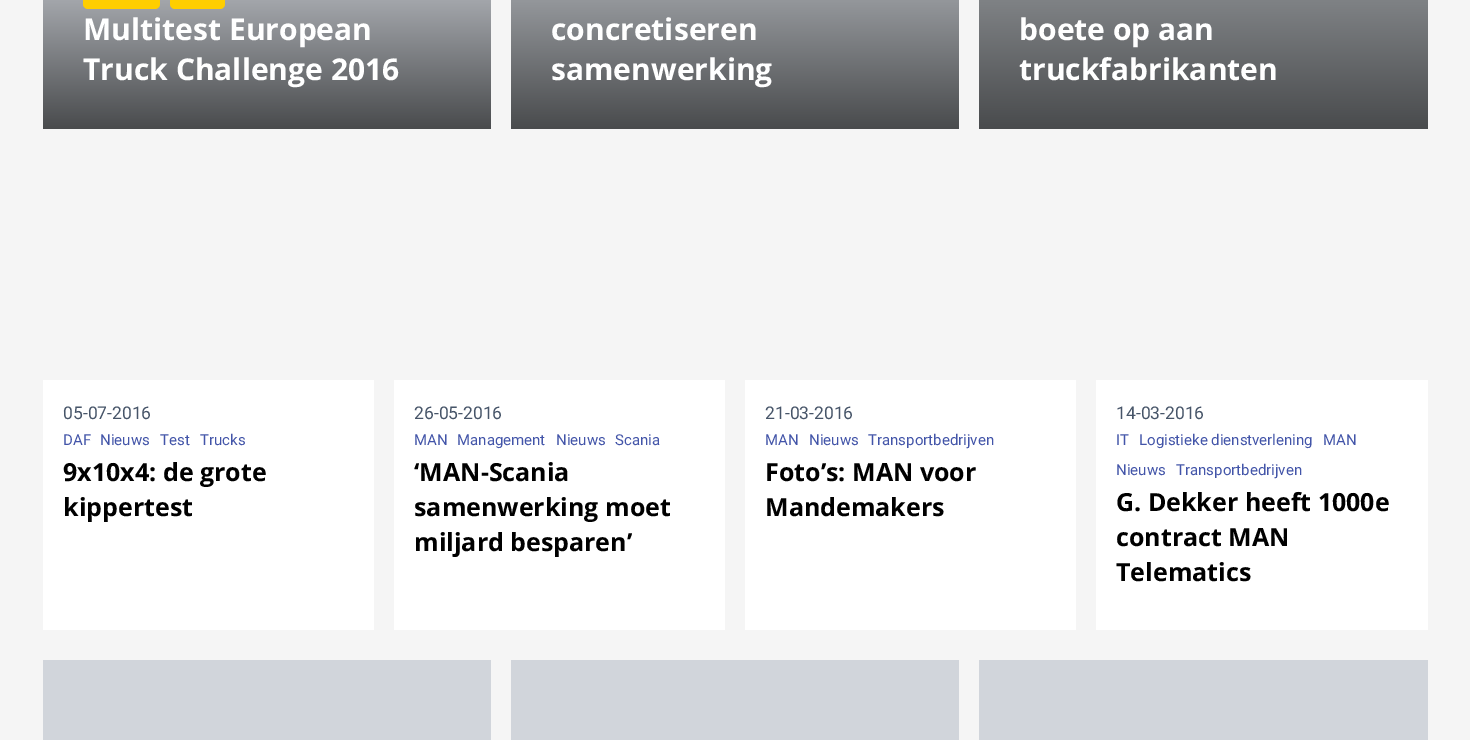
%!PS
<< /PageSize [1470 740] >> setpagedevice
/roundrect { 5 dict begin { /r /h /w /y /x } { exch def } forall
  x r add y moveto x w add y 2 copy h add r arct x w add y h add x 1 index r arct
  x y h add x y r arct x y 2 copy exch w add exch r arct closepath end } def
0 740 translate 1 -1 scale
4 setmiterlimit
0.961 setgray
0 0 1470 740 rectfill
gsave newpath 43 0 moveto 491 0 lineto 491 129 lineto 43 129 lineto closepath clip newpath
<< /ShadingType 2 /ColorSpace /DeviceRGB /Coords [267 -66 267 129] /Extend [true true] /Function << /FunctionType 2 /Domain [0 1] /C0 [0.82 0.835 0.859] /C1 [0.286 0.294 0.302] /N 1 >> >> shfill grestore
0.996 0.808 0 setrgbcolor
83 -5 77 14 5 roundrect fill
170 -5 55 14 5 roundrect fill
/OpenSans-Bold [30 0 0 -30 0 0] selectfont
1 setgray
83 40 moveto (Multitest European) show
83 80 moveto (Truck Challenge 2016) show
gsave newpath 511 0 moveto 959 0 lineto 959 129 lineto 511 129 lineto closepath clip newpath
<< /ShadingType 2 /ColorSpace /DeviceRGB /Coords [735 -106 735 129] /Extend [true true] /Function << /FunctionType 2 /Domain [0 1] /C0 [0.82 0.835 0.859] /C1 [0.286 0.294 0.302] /N 1 >> >> shfill grestore
551 40 moveto (concretiseren) show
551 80 moveto (samenwerking) show
gsave newpath 979 0 moveto 1428 0 lineto 1428 129 lineto 979 129 lineto closepath clip newpath
<< /ShadingType 2 /ColorSpace /DeviceRGB /Coords [1203 -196 1203 129] /Extend [true true] /Function << /FunctionType 2 /Domain [0 1] /C0 [0.82 0.835 0.859] /C1 [0.286 0.294 0.302] /N 1 >> >> shfill grestore
1019 40 moveto (boete op aan) show
1019 80 moveto (truckfabrikanten) show
43 380 331 250 rectfill
/Roboto-Regular [17.5 0 0 -17.5 0 0] selectfont
0.278 0.333 0.412 setrgbcolor
63 419 moveto (05-07-2016) show
/Roboto-Regular [15 0 0 -15 0 0] selectfont
0.263 0.333 0.663 setrgbcolor
63 445 moveto (DAF) show
100 445 moveto (Nieuws) show
160 445 moveto (Test) show
200 445 moveto (Trucks) show
/OpenSans-Bold [25 0 0 -25 0 0] selectfont
0 setgray
63 481 moveto (9x10x4: de grote) show
63 516 moveto (kippertest) show
1 setgray
394 380 331 250 rectfill
/Roboto-Regular [17.5 0 0 -17.5 0 0] selectfont
0.278 0.333 0.412 setrgbcolor
414 419 moveto (26-05-2016) show
/Roboto-Regular [15 0 0 -15 0 0] selectfont
0.263 0.333 0.663 setrgbcolor
414 445 moveto (MAN) show
457 445 moveto (Management) show
556 445 moveto (Nieuws) show
615 445 moveto (Scania) show
/OpenSans-Bold [25 0 0 -25 0 0] selectfont
0 setgray
414 481 moveto (‘MAN-Scania) show
414 516 moveto (samenwerking moet) show
414 551 moveto (miljard besparen’) show
1 setgray
745 380 331 250 rectfill
/Roboto-Regular [17.5 0 0 -17.5 0 0] selectfont
0.278 0.333 0.412 setrgbcolor
765 419 moveto (21-03-2016) show
/Roboto-Regular [15 0 0 -15 0 0] selectfont
0.263 0.333 0.663 setrgbcolor
765 445 moveto (MAN) show
809 445 moveto (Nieuws) show
868 445 moveto (Transportbedrijven) show
/OpenSans-Bold [25 0 0 -25 0 0] selectfont
0 setgray
765 481 moveto (Foto’s: MAN voor) show
765 516 moveto (Mandemakers) show
1 setgray
1096 380 332 250 rectfill
/Roboto-Regular [17.5 0 0 -17.5 0 0] selectfont
0.278 0.333 0.412 setrgbcolor
1116 419 moveto (14-03-2016) show
/Roboto-Regular [15 0 0 -15 0 0] selectfont
0.263 0.333 0.663 setrgbcolor
1116 445 moveto (IT) show
1139 445 moveto (Logistieke dienstverlening) show
1323 445 moveto (MAN) show
1116 475 moveto (Nieuws) show
1176 475 moveto (Transportbedrijven) show
/OpenSans-Bold [25 0 0 -25 0 0] selectfont
0 setgray
1116 511 moveto (G. Dekker heeft 1000e) show
1116 546 moveto (contract MAN) show
1116 581 moveto (Telematics) show
0.82 0.835 0.859 setrgbcolor
43 660 448 80 rectfill
511 660 448 80 rectfill
979 660 449 80 rectfill
showpage
